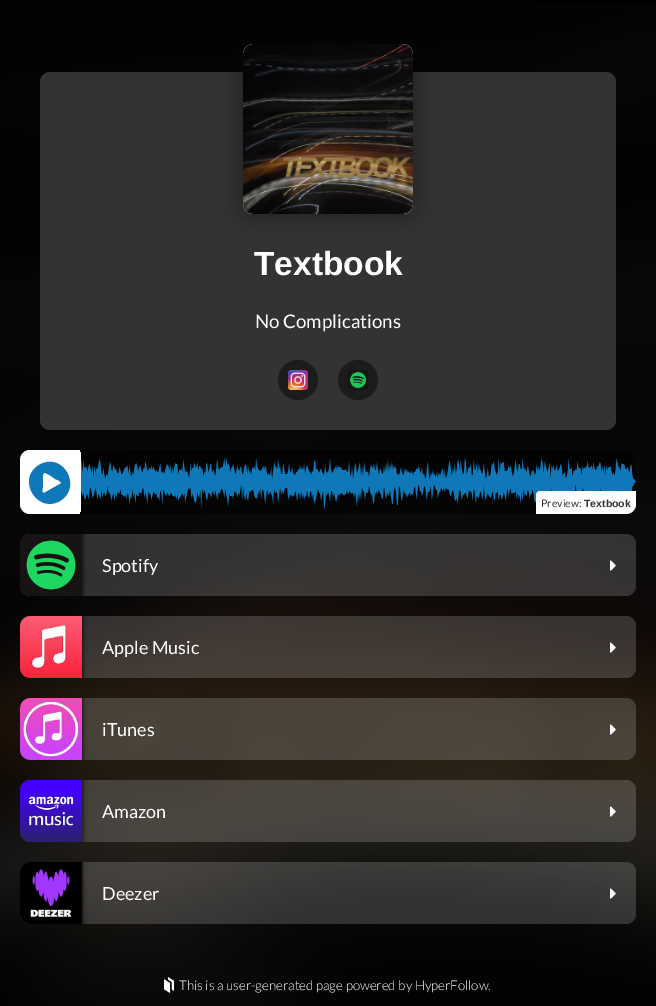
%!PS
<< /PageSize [656 1006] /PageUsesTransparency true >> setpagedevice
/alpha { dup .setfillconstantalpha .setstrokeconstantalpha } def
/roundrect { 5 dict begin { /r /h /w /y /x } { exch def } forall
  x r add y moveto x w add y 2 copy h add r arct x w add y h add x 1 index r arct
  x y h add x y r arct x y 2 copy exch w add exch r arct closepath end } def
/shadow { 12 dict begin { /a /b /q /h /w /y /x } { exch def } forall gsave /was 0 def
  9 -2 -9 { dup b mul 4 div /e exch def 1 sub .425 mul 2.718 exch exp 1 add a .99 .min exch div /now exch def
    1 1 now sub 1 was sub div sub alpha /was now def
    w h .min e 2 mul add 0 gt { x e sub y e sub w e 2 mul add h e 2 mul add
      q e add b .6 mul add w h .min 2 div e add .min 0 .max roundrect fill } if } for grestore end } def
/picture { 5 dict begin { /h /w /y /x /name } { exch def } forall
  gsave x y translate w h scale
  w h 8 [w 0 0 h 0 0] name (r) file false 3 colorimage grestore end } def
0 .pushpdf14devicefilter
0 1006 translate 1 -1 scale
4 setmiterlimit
0 setgray
0 0 656 1006 rectfill
(img1.rgb) 0 2 656 1004 picture
0.2 setgray
40 72 576 358 10 roundrect fill
0 setgray
243 44 170 170 10 12.5 0.35 shadow
0.8 setgray
243 44 170 170 10 roundrect fill
(img2.rgb) 243 44 170 170 picture
/LiberationSans-Bold [33.5 0 0 -33.5 0 0] selectfont
1 setgray
254 275 moveto (Textbook) show
/Lato-Regular [18.75 0 0 -18.75 0 0] selectfont
255 328 moveto (No Complications) show
0.11 setgray
newpath 298 380 20 0 360 arc closepath fill
(img3.rgb) 288 370 20 20 picture
newpath 358 380 20 0 360 arc closepath fill
(img4.rgb) 348 370 20 20 picture
1 setgray
newpath 30 450 moveto 80 450 lineto 80 514 lineto 30 514 lineto 24.5 514 20 509.5 20 504 curveto 20 460 lineto 20 454.5 24.5 450 30 450 curveto closepath fill
0.059 0.471 0.722 setrgbcolor
newpath 39 465 moveto 63 451 83 487 60 501 curveto 37 514 16 479 39 465 curveto closepath 60 484 moveto 64 482 55 479 55 479 curveto 53 477 45 472 44 473 curveto 42 474 43 484 43 486 curveto 43 487 41 493 44 493 curveto closepath fill
0.5 alpha
0 setgray
newpath 80 450 moveto 626 450 lineto 631.5 450 636 454.5 636 460 curveto 636 504 lineto 636 509.5 631.5 514 626 514 curveto 80 514 lineto closepath fill
1 alpha
1 setgray
80 452 1 60 rectfill
(img5.rgb) 81 457 555 53 picture
newpath 540 491 moveto 636 491 lineto 636 504 lineto 636 509.5 631.5 514 626 514 curveto 536 514 lineto 536 495 lineto 536 493 538 491 540 491 curveto closepath fill
/Lato-Regular [10.5 0 0 -10.5 0 0] selectfont
0.2 setgray
541 507 moveto (Preview:) show
/LiberationSans-Bold [10.5 0 0 -10.5 0 0] selectfont
584 507 moveto (Textbook) show
0.17 alpha
1 setgray
20 534 616 62 10 roundrect fill
gsave
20 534 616 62 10 roundrect clip newpath
1 alpha
0 setgray
20 534 62 62 0 2.5 1 shadow
grestore
1 alpha
(img6.rgb) 20 534 62 62 picture
/Lato-Regular [18 0 0 -18 0 0] selectfont
102 572 moveto (Spotify) show
(img7.rgb) 610 560 6 11 picture
0.17 alpha
20 616 616 62 10 roundrect fill
gsave
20 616 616 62 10 roundrect clip newpath
1 alpha
0 setgray
20 616 62 62 0 2.5 1 shadow
grestore
1 alpha
(img8.rgb) 20 616 62 62 picture
102 654 moveto (Apple Music) show
(img9.rgb) 610 642 6 11 picture
0.17 alpha
20 698 616 62 10 roundrect fill
gsave
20 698 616 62 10 roundrect clip newpath
1 alpha
0 setgray
20 698 62 62 0 2.5 1 shadow
grestore
1 alpha
(img10.rgb) 20 698 62 62 picture
102 736 moveto (iTunes) show
(img11.rgb) 610 724 6 11 picture
0.17 alpha
20 780 616 62 10 roundrect fill
gsave
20 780 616 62 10 roundrect clip newpath
1 alpha
0 setgray
20 780 62 62 0 2.5 1 shadow
grestore
1 alpha
(img12.rgb) 20 780 62 62 picture
102 818 moveto (Amazon) show
(img13.rgb) 610 806 6 11 picture
0.17 alpha
20 862 616 62 10 roundrect fill
gsave
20 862 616 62 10 roundrect clip newpath
1 alpha
0 setgray
20 862 62 62 0 2.5 1 shadow
grestore
1 alpha
(img14.rgb) 20 862 62 62 picture
102 900 moveto (Deezer) show
(img15.rgb) 610 888 6 11 picture
(img16.rgb) 164 977 10 16 picture
/Lato-Light [13.3 0 0 -13.3 0 0] selectfont
179 990 moveto (This is a user-generated page powered by HyperFollow.) show
.poppdf14devicefilter showpage
